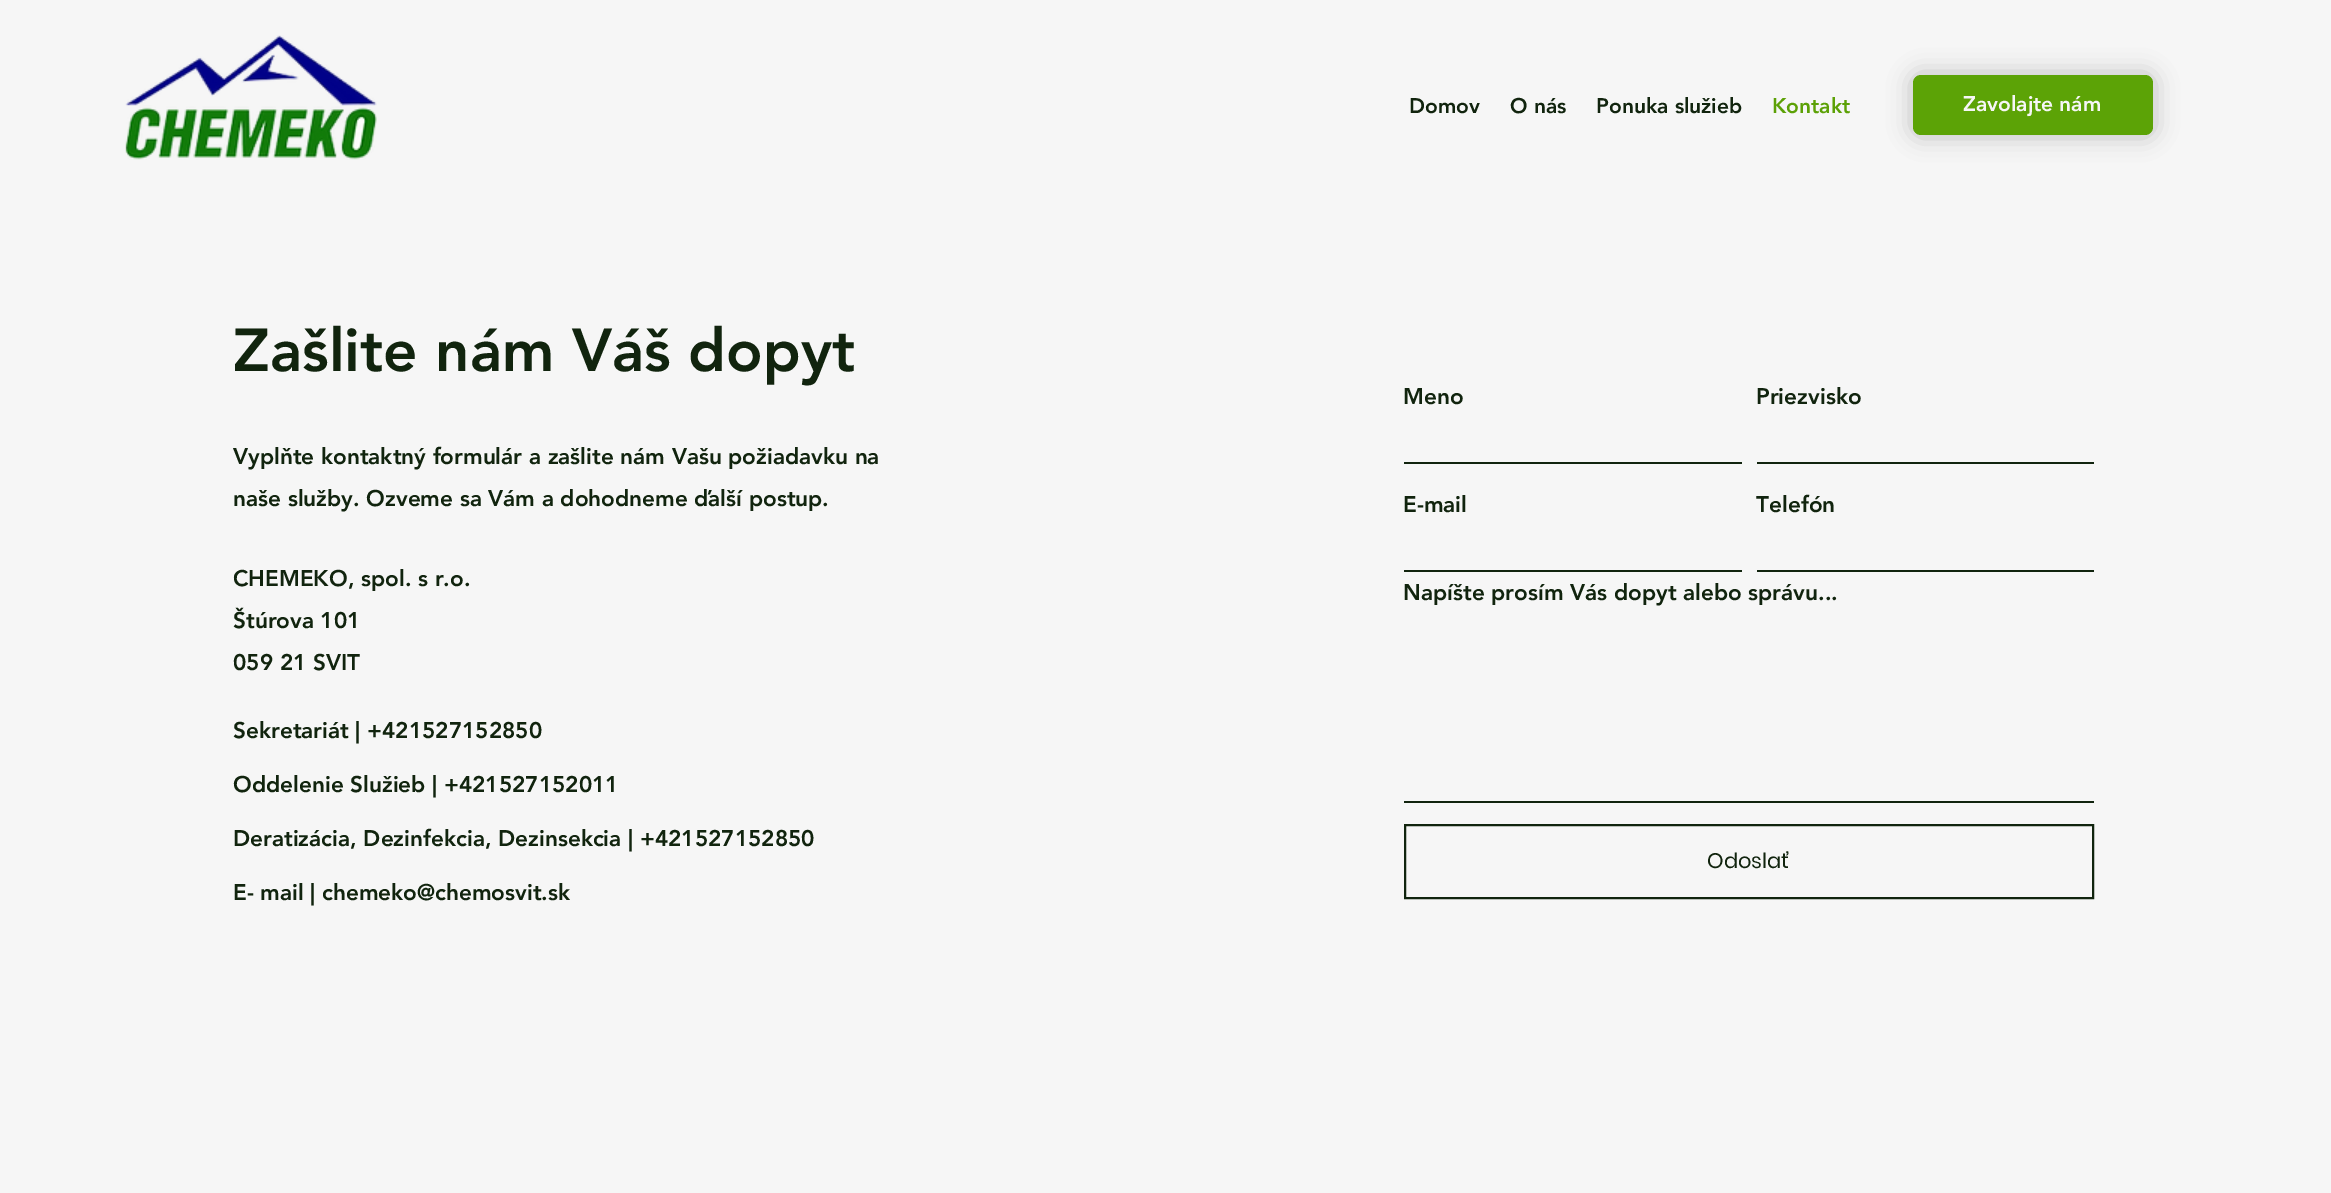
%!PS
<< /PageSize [2331 1193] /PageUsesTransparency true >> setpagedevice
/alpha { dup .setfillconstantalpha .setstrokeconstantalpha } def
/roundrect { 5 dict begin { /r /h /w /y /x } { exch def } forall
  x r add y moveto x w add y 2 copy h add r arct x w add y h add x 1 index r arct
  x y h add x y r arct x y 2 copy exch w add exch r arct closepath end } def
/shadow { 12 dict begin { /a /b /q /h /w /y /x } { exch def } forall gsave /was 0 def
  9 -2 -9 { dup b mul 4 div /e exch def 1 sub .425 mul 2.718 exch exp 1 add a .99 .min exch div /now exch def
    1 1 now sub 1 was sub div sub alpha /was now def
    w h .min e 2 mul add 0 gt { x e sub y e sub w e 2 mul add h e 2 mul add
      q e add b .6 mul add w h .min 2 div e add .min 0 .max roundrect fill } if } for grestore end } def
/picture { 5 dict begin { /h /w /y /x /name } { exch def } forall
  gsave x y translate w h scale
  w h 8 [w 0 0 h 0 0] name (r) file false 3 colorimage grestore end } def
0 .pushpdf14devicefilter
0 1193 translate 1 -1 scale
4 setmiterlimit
0.965 setgray
0 0 2331 1193 rectfill
(img1.rgb) 125 35 252 125 picture
/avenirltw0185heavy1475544-Black [21 0 0 -21 0 0] selectfont
0.067 0.141 0.055 setrgbcolor
1409 113 moveto (Domov) show
1510 113 moveto (O nás) show
1596 113 moveto (Ponuka služieb) show
0.361 0.631 0.024 setrgbcolor
1772 113 moveto (Kontakt) show
0 setgray
1910 72 246 66 11 11 0.2 shadow
0.361 0.639 0.024 setrgbcolor
1913 75 240 60 8 roundrect fill
0.965 setgray
1963 111 moveto (Zavolajte nám) show
/avenirltw0185heavy1475544-Black [60 0 0 -60 0 0] selectfont
0.067 0.141 0.055 setrgbcolor
233 371 moveto (Zašlite nám Váš dopyt) show
/avenirltw0185heavy1475544-Black [22.5 0 0 -22.5 0 0] selectfont
233 464 moveto (Vyplňte kontaktný formulár a zašlite nám Vašu požiadavku na) show
233 506 moveto (naše služby. Ozveme sa Vám a dohodneme ďalší postup.) show
233 586 moveto (CHEMEKO, spol. s r.o.) show
233 628 moveto (Štúrova 101) show
233 670 moveto (059 21 SVIT) show
233 738 moveto (Sekretariát | +421527152850) show
233 792 moveto (Oddelenie Služieb | +421527152011) show
233 846 moveto (Deratizácia, Dezinfekcia, Dezinsekcia | +421527152850) show
233 900 moveto (E- mail | chemeko@chemosvit.sk) show
1403 404 moveto (Meno) show
1404 462 338 2 rectfill
1756 404 moveto (Priezvisko) show
1757 462 337 2 rectfill
1403 512 moveto (E-mail) show
1404 570 338 2 rectfill
1756 512 moveto (Telefón) show
1757 570 337 2 rectfill
1403 600 moveto (Napíšte prosím Vás dopyt alebo správu...) show
1404 801 690 2 rectfill
2 setlinewidth
1405 825 688 73 rectstroke
/Poppins-Regular [21 0 0 -21 0 0] selectfont
1707 868 moveto (Odoslať) show
.poppdf14devicefilter showpage
